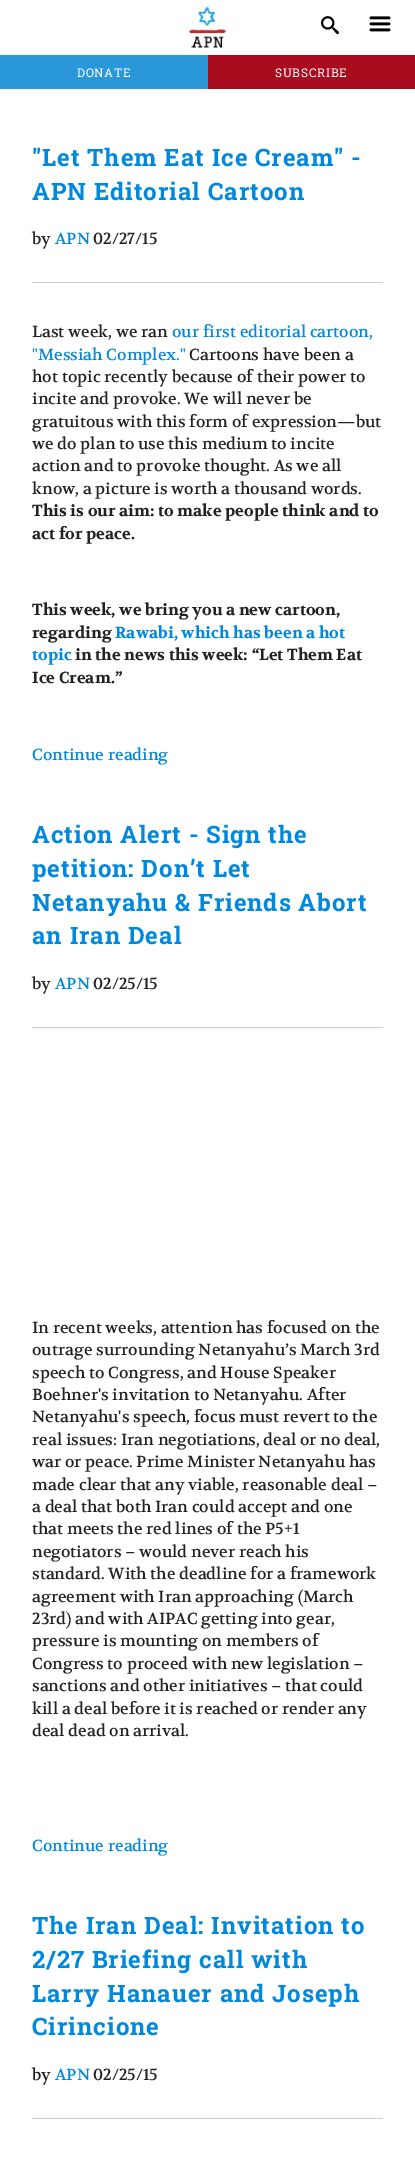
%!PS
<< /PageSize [415 2162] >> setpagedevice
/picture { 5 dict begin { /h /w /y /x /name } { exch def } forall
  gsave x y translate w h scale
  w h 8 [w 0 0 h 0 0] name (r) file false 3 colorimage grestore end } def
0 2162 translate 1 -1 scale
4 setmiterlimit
1 setgray
0 0 415 2162 rectfill
(img1.rgb) 321 16 18 19 picture
(img2.rgb) 369 16 22 16 picture
(img3.rgb) 188 6 39 42 picture
0.165 0.596 0.847 setrgbcolor
0 55 208 34 rectfill
/RobotoSlab-Regular [12 0 0 -12 0 0] selectfont
1 setgray
77 77 moveto 0.75 0 (DONATE) ashow
0.663 0.047 0.122 setrgbcolor
208 55 207 34 rectfill
1 setgray
275 77 moveto 0.75 0 (SUBSCRIBE) ashow
/RobotoSlab-Bold [24 0 0 -24 0 0] selectfont
0 0.533 0.867 setrgbcolor
32 166 moveto 0.95 0 ("Let Them Eat Ice Cream" -) ashow
32 200 moveto 0.95 0 (APN Editorial Cartoon) ashow
/Volkhov-Regular [16 0 0 -16 0 0] selectfont
0.133 setgray
32 244 moveto (by) show
0 0.533 0.867 setrgbcolor
55 244 moveto (APN) show
0.133 setgray
93 244 moveto (02/27/15) show
0.8 setgray
32 282 351 1 rectfill
0.133 setgray
32 337 moveto (Last week, we ran) show
0 0.533 0.867 setrgbcolor
172 337 moveto (our first editorial cartoon,) show
32 360 moveto ("Messiah Complex.") show
0.133 setgray
189 360 moveto (Cartoons have been a) show
32 382 moveto (hot topic recently because of their power to) show
32 404 moveto (incite and provoke. We will never be) show
32 427 moveto (gratuitous with this form of expression—but) show
32 449 moveto (we do plan to use this medium to incite) show
32 471 moveto (action and to provoke thought. As we all) show
32 494 moveto (know, a picture is worth a thousand words.) show
/Volkhov-Bold [16 0 0 -16 0 0] selectfont
32 516 moveto (This is our aim: to make people think and to) show
32 539 moveto (act for peace.) show
32 615 moveto (This week, we bring you a new cartoon,) show
32 638 moveto (regarding) show
0 0.533 0.867 setrgbcolor
115 638 moveto (Rawabi, which has been a hot) show
32 660 moveto (topic) show
0.133 setgray
75 660 moveto (in the news this week: “Let Them Eat) show
32 683 moveto (Ice Cream.”) show
/Volkhov-Regular [16 0 0 -16 0 0] selectfont
0 0.533 0.867 setrgbcolor
32 760 moveto (Continue reading) show
/RobotoSlab-Bold [24 0 0 -24 0 0] selectfont
32 843 moveto 0.95 0 (Action Alert - Sign the) ashow
32 877 moveto 0.95 0 (petition: Don’t Let) ashow
32 911 moveto 0.95 0 (Netanyahu & Friends Abort) ashow
32 944 moveto 0.95 0 (an Iran Deal) ashow
/Volkhov-Regular [16 0 0 -16 0 0] selectfont
0.133 setgray
32 989 moveto (by) show
0 0.533 0.867 setrgbcolor
55 989 moveto (APN) show
0.133 setgray
93 989 moveto (02/25/15) show
0.8 setgray
32 1027 351 1 rectfill
0.133 setgray
32 1333 moveto (In recent weeks, attention has focused on the) show
32 1355 moveto (outrage surrounding Netanyahu’s March 3rd) show
32 1378 moveto (speech to Congress, and House Speaker) show
32 1400 moveto (Boehner's invitation to Netanyahu. After) show
32 1422 moveto (Netanyahu's speech, focus must revert to the) show
32 1445 moveto (real issues: Iran negotiations, deal or no deal,) show
32 1467 moveto (war or peace. Prime Minister Netanyahu has) show
32 1490 moveto (made clear that any viable, reasonable deal –) show
32 1512 moveto (a deal that both Iran could accept and one) show
32 1534 moveto (that meets the red lines of the P5+1) show
32 1557 moveto (negotiators – would never reach his) show
32 1579 moveto (standard. With the deadline for a framework) show
32 1602 moveto (agreement with Iran approaching \(March) show
32 1624 moveto (23rd\) and with AIPAC getting into gear,) show
32 1646 moveto (pressure is mounting on members of) show
32 1669 moveto (Congress to proceed with new legislation –) show
32 1691 moveto (sanctions and other initiatives – that could) show
32 1714 moveto (kill a deal before it is reached or render any) show
32 1736 moveto (deal dead on arrival.) show
0 0.533 0.867 setrgbcolor
32 1851 moveto (Continue reading) show
/RobotoSlab-Bold [24 0 0 -24 0 0] selectfont
32 1934 moveto 0.95 0 (The Iran Deal: Invitation to) ashow
32 1968 moveto 0.95 0 (2/27 Briefing call with) ashow
32 2002 moveto 0.95 0 (Larry Hanauer and Joseph) ashow
32 2035 moveto 0.95 0 (Cirincione) ashow
/Volkhov-Regular [16 0 0 -16 0 0] selectfont
0.133 setgray
32 2080 moveto (by) show
0 0.533 0.867 setrgbcolor
55 2080 moveto (APN) show
0.133 setgray
93 2080 moveto (02/25/15) show
0.8 setgray
32 2118 351 1 rectfill
showpage
